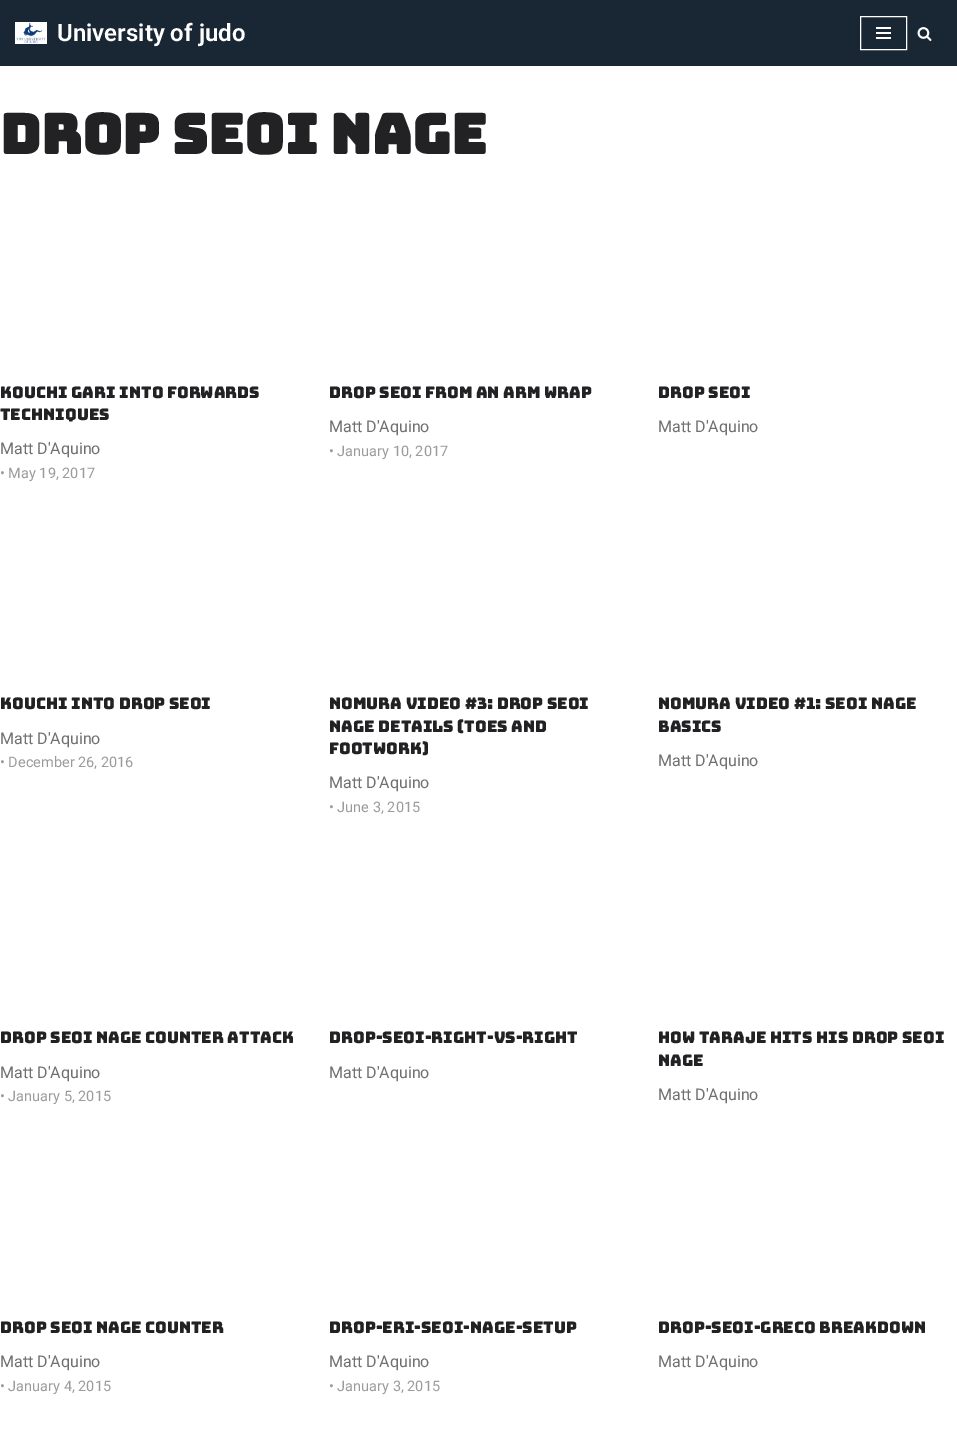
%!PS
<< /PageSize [957 1431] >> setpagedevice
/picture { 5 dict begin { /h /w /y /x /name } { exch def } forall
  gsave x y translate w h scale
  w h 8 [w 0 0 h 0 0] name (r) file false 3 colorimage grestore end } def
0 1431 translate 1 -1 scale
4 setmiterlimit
1 setgray
0 0 957 1431 rectfill
0.098 0.153 0.204 setrgbcolor
0 0 957 66 rectfill
(img1.rgb) 15 22 32 22 picture
/Roboto-SemiBold [24 0 0 -24 0 0] selectfont
1 setgray
57 41 moveto (University of judo) show
860.5 16.5 46 33 rectstroke
876 27 15 2 rectfill
876 32 15 2 rectfill
876 37 15 2 rectfill
(img2.rgb) 917 27 15 14 picture
/Bungee-Bold [55 0 0 -55 0 0] selectfont
0.133 0.133 0.141 setrgbcolor
0 154 moveto (Drop seoi nage) show
/Bungee-Regular [16 0 0 -16 0 0] selectfont
0 398 moveto (kouchi gari into forwards) show
0 420 moveto (techniques) show
/Roboto-Regular [16 0 0 -16 0 0] selectfont
0.439 setgray
0 454 moveto (Matt D'Aquino) show
/Roboto-Regular [14.5 0 0 -14.5 0 0] selectfont
0.608 setgray
0 478 moveto (• May 19, 2017) show
/Bungee-Regular [16 0 0 -16 0 0] selectfont
0.133 0.133 0.141 setrgbcolor
329 398 moveto (Drop seoi from an arm wrap) show
/Roboto-Regular [16 0 0 -16 0 0] selectfont
0.439 setgray
329 432 moveto (Matt D'Aquino) show
/Roboto-Regular [14.5 0 0 -14.5 0 0] selectfont
0.608 setgray
329 456 moveto (• January 10, 2017) show
/Bungee-Regular [16 0 0 -16 0 0] selectfont
0.133 0.133 0.141 setrgbcolor
658 398 moveto (Drop seoi) show
/Roboto-Regular [16 0 0 -16 0 0] selectfont
0.439 setgray
658 432 moveto (Matt D'Aquino) show
/Bungee-Regular [16 0 0 -16 0 0] selectfont
0.133 0.133 0.141 setrgbcolor
0 709 moveto (kouchi into drop seoi) show
/Roboto-Regular [16 0 0 -16 0 0] selectfont
0.439 setgray
0 744 moveto (Matt D'Aquino) show
/Roboto-Regular [14.5 0 0 -14.5 0 0] selectfont
0.608 setgray
0 767 moveto (• December 26, 2016) show
/Bungee-Regular [16 0 0 -16 0 0] selectfont
0.133 0.133 0.141 setrgbcolor
329 709 moveto (Nomura Video #3: Drop seoi) show
329 732 moveto (nage details \(toes and) show
329 754 moveto (footwork\)) show
/Roboto-Regular [16 0 0 -16 0 0] selectfont
0.439 setgray
329 788 moveto (Matt D'Aquino) show
/Roboto-Regular [14.5 0 0 -14.5 0 0] selectfont
0.608 setgray
329 812 moveto (• June 3, 2015) show
/Bungee-Regular [16 0 0 -16 0 0] selectfont
0.133 0.133 0.141 setrgbcolor
658 709 moveto (Nomura Video #1: Seoi nage) show
658 732 moveto (basics) show
/Roboto-Regular [16 0 0 -16 0 0] selectfont
0.439 setgray
658 766 moveto (Matt D'Aquino) show
/Bungee-Regular [16 0 0 -16 0 0] selectfont
0.133 0.133 0.141 setrgbcolor
0 1043 moveto (Drop seoi nage counter attack) show
/Roboto-Regular [16 0 0 -16 0 0] selectfont
0.439 setgray
0 1078 moveto (Matt D'Aquino) show
/Roboto-Regular [14.5 0 0 -14.5 0 0] selectfont
0.608 setgray
0 1101 moveto (• January 5, 2015) show
/Bungee-Regular [16 0 0 -16 0 0] selectfont
0.133 0.133 0.141 setrgbcolor
329 1043 moveto (Drop-seoi-right-vs-right) show
/Roboto-Regular [16 0 0 -16 0 0] selectfont
0.439 setgray
329 1078 moveto (Matt D'Aquino) show
/Bungee-Regular [16 0 0 -16 0 0] selectfont
0.133 0.133 0.141 setrgbcolor
658 1043 moveto (How taraje hits his drop seoi) show
658 1066 moveto (nage) show
/Roboto-Regular [16 0 0 -16 0 0] selectfont
0.439 setgray
658 1100 moveto (Matt D'Aquino) show
/Bungee-Regular [16 0 0 -16 0 0] selectfont
0.133 0.133 0.141 setrgbcolor
0 1333 moveto (Drop seoi nage counter) show
/Roboto-Regular [16 0 0 -16 0 0] selectfont
0.439 setgray
0 1367 moveto (Matt D'Aquino) show
/Roboto-Regular [14.5 0 0 -14.5 0 0] selectfont
0.608 setgray
0 1391 moveto (• January 4, 2015) show
/Bungee-Regular [16 0 0 -16 0 0] selectfont
0.133 0.133 0.141 setrgbcolor
329 1333 moveto (Drop-eri-seoi-nage-setup) show
/Roboto-Regular [16 0 0 -16 0 0] selectfont
0.439 setgray
329 1367 moveto (Matt D'Aquino) show
/Roboto-Regular [14.5 0 0 -14.5 0 0] selectfont
0.608 setgray
329 1391 moveto (• January 3, 2015) show
/Bungee-Regular [16 0 0 -16 0 0] selectfont
0.133 0.133 0.141 setrgbcolor
658 1333 moveto (drop-seoi-greco breakdown) show
/Roboto-Regular [16 0 0 -16 0 0] selectfont
0.439 setgray
658 1367 moveto (Matt D'Aquino) show
showpage
